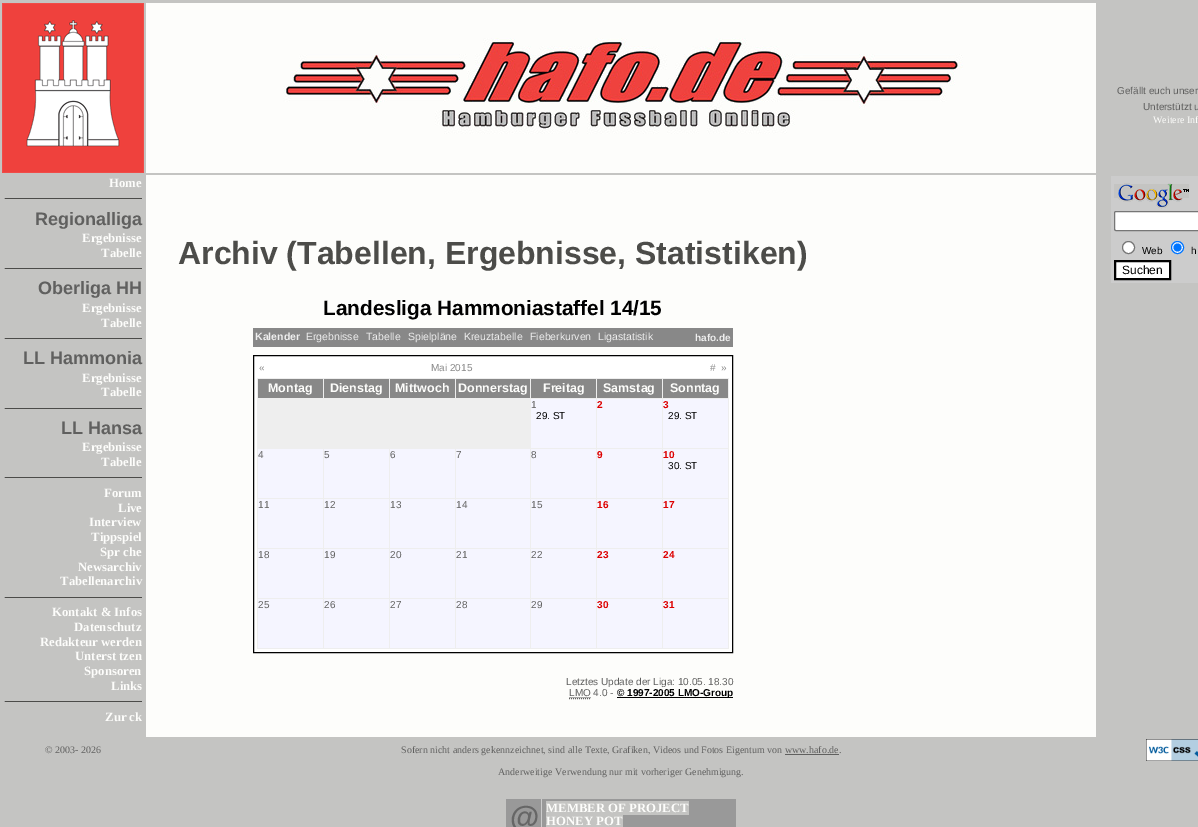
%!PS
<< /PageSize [1198 827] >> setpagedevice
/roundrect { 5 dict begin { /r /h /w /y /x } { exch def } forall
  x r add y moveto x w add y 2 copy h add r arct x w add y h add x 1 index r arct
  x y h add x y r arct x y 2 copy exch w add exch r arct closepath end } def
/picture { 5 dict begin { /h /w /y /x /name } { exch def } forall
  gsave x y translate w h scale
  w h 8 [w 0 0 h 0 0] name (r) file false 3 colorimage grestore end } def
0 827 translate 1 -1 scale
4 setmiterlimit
0.769 0.769 0.761 setrgbcolor
0 0 1198 827 rectfill
(img1.rgb) 2 3 142 170 picture
0.992 0.992 0.984 setrgbcolor
146 3 950 170 rectfill
(img2.rgb) 283 38 680 96 picture
/LiberationSans-Regular [10 0 0 -10 0 0] selectfont
0.376 0.376 0.373 setrgbcolor
1117 94 moveto (Gefällt euch unser) show
1143 110 moveto (Unterstützt u) show
/LiberationSerif-Regular [10 0 0 -10 0 0] selectfont
0.992 0.992 0.984 setrgbcolor
1153 123 moveto (Weitere Inf) show
/LiberationSerif-Bold [12.75 0 0 -12.75 0 0] selectfont
109 187 moveto (Home) show
0.298 0.298 0.286 setrgbcolor
4 198 138 1 rectfill
0.624 setgray
4 198 1 1 rectfill
/LiberationSans-Bold [18 0 0 -18 0 0] selectfont
0.376 0.376 0.373 setrgbcolor
35 225 moveto (Regionalliga) show
/LiberationSerif-Bold [12.75 0 0 -12.75 0 0] selectfont
0.992 0.992 0.984 setrgbcolor
82 242 moveto (Ergebnisse) show
101 257 moveto (Tabelle) show
0.298 0.298 0.286 setrgbcolor
4 268 138 1 rectfill
0.624 setgray
4 268 1 1 rectfill
/LiberationSans-Bold [18 0 0 -18 0 0] selectfont
0.376 0.376 0.373 setrgbcolor
38 294 moveto (Oberliga HH) show
/LiberationSerif-Bold [12.75 0 0 -12.75 0 0] selectfont
0.992 0.992 0.984 setrgbcolor
82 312 moveto (Ergebnisse) show
101 327 moveto (Tabelle) show
0.298 0.298 0.286 setrgbcolor
4 338 138 1 rectfill
0.624 setgray
4 338 1 1 rectfill
/LiberationSans-Bold [18 0 0 -18 0 0] selectfont
0.376 0.376 0.373 setrgbcolor
23 364 moveto (LL Hammonia) show
/LiberationSerif-Bold [12.75 0 0 -12.75 0 0] selectfont
0.992 0.992 0.984 setrgbcolor
82 382 moveto (Ergebnisse) show
101 396 moveto (Tabelle) show
0.298 0.298 0.286 setrgbcolor
4 408 138 1 rectfill
0.624 setgray
4 408 1 1 rectfill
/LiberationSans-Bold [18 0 0 -18 0 0] selectfont
0.376 0.376 0.373 setrgbcolor
61 434 moveto (LL Hansa) show
/LiberationSerif-Bold [12.75 0 0 -12.75 0 0] selectfont
0.992 0.992 0.984 setrgbcolor
82 451 moveto (Ergebnisse) show
101 466 moveto (Tabelle) show
0.298 0.298 0.286 setrgbcolor
4 477 138 1 rectfill
0.624 setgray
4 477 1 1 rectfill
0.992 0.992 0.984 setrgbcolor
104 497 moveto (Forum) show
118 512 moveto (Live) show
89 526 moveto (Interview) show
91 541 moveto (Tippspiel) show
100 556 moveto (Spr che) show
78 571 moveto (Newsarchiv) show
60 585 moveto (Tabellenarchiv) show
0.298 0.298 0.286 setrgbcolor
4 597 138 1 rectfill
0.624 setgray
4 597 1 1 rectfill
0.992 0.992 0.984 setrgbcolor
52 616 moveto (Kontakt & Infos) show
74 631 moveto (Datenschutz) show
40 646 moveto (Redakteur werden) show
75 660 moveto (Unterst tzen) show
84 675 moveto (Sponsoren) show
111 690 moveto (Links) show
0.298 0.298 0.286 setrgbcolor
4 701 138 1 rectfill
0.624 setgray
4 701 1 1 rectfill
0.992 0.992 0.984 setrgbcolor
105 721 moveto (Zur ck) show
146 175 950 562 rectfill
/LiberationSans-Bold [32 0 0 -32 0 0] selectfont
0.298 0.298 0.286 setrgbcolor
178 264 moveto (Archiv \(Tabellen, Ergebnisse, Statistiken\)) show
/LiberationSans-Bold [20.75 0 0 -20.75 0 0] selectfont
0 setgray
323 315 moveto (Landesliga Hammoniastaffel 14/15) show
0.533 setgray
253 328 480 19 rectfill
/LiberationSans-Bold [10.5 0 0 -10.5 0 0] selectfont
0.933 setgray
255 340 moveto (Kalender) show
/LiberationSans-Regular [10.5 0 0 -10.5 0 0] selectfont
306 340 moveto (Ergebnisse) show
366 340 moveto (Tabelle) show
408 340 moveto (Spielpläne) show
464 340 moveto (Kreuztabelle) show
530 340 moveto (Fieberkurven) show
598 340 moveto (Ligastatistik) show
/LiberationSans-Bold [10 0 0 -10 0 0] selectfont
695 341 moveto (hafo.de) show
1 setgray
newpath 253.5 355.5 moveto 732.5 355.5 lineto 732.5 652.5 lineto 253.5 652.5 lineto closepath gsave fill grestore
0 setgray
stroke
/LiberationSans-Regular [10 0 0 -10 0 0] selectfont
0.533 setgray
259 371 moveto («) show
431 371 moveto (Mai 2015) show
710 371 moveto (#) show
721 371 moveto (») show
0.961 0.961 1 setrgbcolor
258 399 470 249 rectfill
0.533 setgray
258 379 65 19 rectfill
0.933 setgray
662 378 67 1 rectfill
662 398 67 1 rectfill
662 448 67 1 rectfill
662 498 67 1 rectfill
662 548 67 1 rectfill
662 598 67 1 rectfill
728 598 1 51 rectfill
662 648 67 1 rectfill
662 598 1 51 rectfill
596 598 67 1 rectfill
662 548 1 51 rectfill
596 548 67 1 rectfill
662 498 1 51 rectfill
596 498 67 1 rectfill
662 448 1 51 rectfill
596 448 67 1 rectfill
662 398 1 51 rectfill
596 398 67 1 rectfill
662 378 1 21 rectfill
596 378 67 1 rectfill
596 648 67 1 rectfill
596 598 1 51 rectfill
530 598 67 1 rectfill
596 548 1 51 rectfill
530 548 67 1 rectfill
596 498 1 51 rectfill
530 498 67 1 rectfill
596 448 1 51 rectfill
530 448 67 1 rectfill
596 398 1 51 rectfill
530 398 67 1 rectfill
596 378 1 21 rectfill
530 378 67 1 rectfill
530 648 67 1 rectfill
530 598 1 51 rectfill
455 598 76 1 rectfill
530 548 1 51 rectfill
455 548 76 1 rectfill
530 498 1 51 rectfill
455 498 76 1 rectfill
530 448 1 51 rectfill
455 448 76 1 rectfill
530 398 1 51 rectfill
530 378 1 21 rectfill
455 378 76 1 rectfill
323 398 207 50 rectfill
455 378 1 21 rectfill
389 378 67 1 rectfill
389 378 1 21 rectfill
323 378 67 1 rectfill
257 398 67 1 rectfill
323 378 1 21 rectfill
257 378 67 1 rectfill
455 648 76 1 rectfill
455 598 1 51 rectfill
389 598 67 1 rectfill
455 548 1 51 rectfill
389 548 67 1 rectfill
455 498 1 51 rectfill
389 498 67 1 rectfill
455 448 1 51 rectfill
389 448 67 1 rectfill
389 648 67 1 rectfill
389 598 1 51 rectfill
323 598 67 1 rectfill
389 548 1 51 rectfill
323 548 67 1 rectfill
389 498 1 51 rectfill
323 498 67 1 rectfill
389 448 1 51 rectfill
323 448 67 1 rectfill
323 648 67 1 rectfill
323 598 1 51 rectfill
257 598 67 1 rectfill
323 548 1 51 rectfill
257 548 67 1 rectfill
323 498 1 51 rectfill
257 498 67 1 rectfill
323 448 1 51 rectfill
257 448 67 1 rectfill
257 648 67 1 rectfill
257 598 1 51 rectfill
257 548 1 51 rectfill
257 498 1 51 rectfill
257 448 1 51 rectfill
257 398 1 51 rectfill
257 378 1 21 rectfill
/LiberationSans-Bold [12.5 0 0 -12.5 0 0] selectfont
0.992 0.992 0.984 setrgbcolor
268 392 moveto (Montag) show
0.533 setgray
324 379 65 19 rectfill
0.992 0.992 0.984 setrgbcolor
330 392 moveto (Dienstag) show
0.533 setgray
390 379 65 19 rectfill
0.992 0.992 0.984 setrgbcolor
395 392 moveto (Mittwoch) show
0.533 setgray
456 379 74 19 rectfill
0.992 0.992 0.984 setrgbcolor
458 392 moveto (Donnerstag) show
0.533 setgray
531 379 65 19 rectfill
0.992 0.992 0.984 setrgbcolor
543 392 moveto (Freitag) show
0.533 setgray
597 379 65 19 rectfill
0.992 0.992 0.984 setrgbcolor
603 392 moveto (Samstag) show
0.533 setgray
663 379 65 19 rectfill
0.933 setgray
728 548 1 51 rectfill
728 498 1 51 rectfill
728 448 1 51 rectfill
728 398 1 51 rectfill
728 378 1 21 rectfill
0.992 0.992 0.984 setrgbcolor
670 392 moveto (Sonntag) show
0.933 setgray
258 399 65 49 rectfill
/LiberationSans-Regular [10 0 0 -10 0 0] selectfont
0.376 0.376 0.373 setrgbcolor
531 408 moveto (1) show
0 setgray
536 419 moveto (29. ST) show
/LiberationSans-Bold [10 0 0 -10 0 0] selectfont
0.867 0 0 setrgbcolor
597 408 moveto (2) show
663 408 moveto (3) show
/LiberationSans-Regular [10 0 0 -10 0 0] selectfont
0 setgray
668 419 moveto (29. ST) show
0.376 0.376 0.373 setrgbcolor
258 458 moveto (4) show
324 458 moveto (5) show
390 458 moveto (6) show
456 458 moveto (7) show
531 458 moveto (8) show
/LiberationSans-Bold [10 0 0 -10 0 0] selectfont
0.867 0 0 setrgbcolor
597 458 moveto (9) show
663 458 moveto (10) show
/LiberationSans-Regular [10 0 0 -10 0 0] selectfont
0 setgray
668 469 moveto (30. ST) show
0.376 0.376 0.373 setrgbcolor
258 508 moveto (11) show
324 508 moveto (12) show
390 508 moveto (13) show
456 508 moveto (14) show
531 508 moveto (15) show
/LiberationSans-Bold [10 0 0 -10 0 0] selectfont
0.867 0 0 setrgbcolor
597 508 moveto (16) show
663 508 moveto (17) show
/LiberationSans-Regular [10 0 0 -10 0 0] selectfont
0.376 0.376 0.373 setrgbcolor
258 558 moveto (18) show
324 558 moveto (19) show
390 558 moveto (20) show
456 558 moveto (21) show
531 558 moveto (22) show
/LiberationSans-Bold [10 0 0 -10 0 0] selectfont
0.867 0 0 setrgbcolor
597 558 moveto (23) show
663 558 moveto (24) show
/LiberationSans-Regular [10 0 0 -10 0 0] selectfont
0.376 0.376 0.373 setrgbcolor
258 608 moveto (25) show
324 608 moveto (26) show
390 608 moveto (27) show
456 608 moveto (28) show
531 608 moveto (29) show
/LiberationSans-Bold [10 0 0 -10 0 0] selectfont
0.867 0 0 setrgbcolor
597 608 moveto (30) show
663 608 moveto (31) show
/LiberationSans-Regular [10 0 0 -10 0 0] selectfont
0.376 0.376 0.373 setrgbcolor
566 685 moveto (Letztes Update der Liga: 10.05. 18.30) show
0.992 0.992 0.984 setrgbcolor
663 687 1 1 rectfill
0.376 0.376 0.373 setrgbcolor
569 696 moveto (LMO 4.0 -) show
[1 1] 0 setdash
newpath 569 698.5 moveto 591 698.5 lineto 569.5 697.5 moveto 591 697.5 lineto stroke
0 setgray
617 697 116 1 rectfill
/LiberationSans-Bold [10 0 0 -10 0 0] selectfont
617 696 moveto (© 1997-2005 LMO-Group) show
0.8 setgray
1111 176 87 107 rectfill
0.769 0.769 0.761 setrgbcolor
1114 184 75 14 rectfill
(img3.rgb) 1117 183 72 26 picture
1 setgray
1114.5 211.5 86 19 1.5 roundrect gsave fill grestore
0.463 setgray
[] 0 setdash
stroke
1 setgray
newpath 1128.5 247.5 6 0 360 arc closepath gsave fill grestore
0.463 setgray
stroke
/LiberationSans-Regular [10 0 0 -10 0 0] selectfont
0 setgray
1142 254 moveto (Web) show
1 setgray
newpath 1177.5 247.5 6 0 360 arc closepath gsave fill grestore
0 0.459 1 setrgbcolor
stroke
newpath 1177.5 247.5 4 0 360 arc closepath fill
0 setgray
1191 254 moveto (h) show
1 setgray
newpath 1115 261 moveto 1170 261 lineto 1170 279 lineto 1115 279 lineto closepath gsave fill grestore
0 setgray
2 setlinewidth
stroke
/LiberationSans-Regular [12 0 0 -12 0 0] selectfont
1122 274 moveto (Suchen) show
/LiberationSerif-Regular [10 0 0 -10 0 0] selectfont
0.376 0.376 0.373 setrgbcolor
45 753 moveto (© 2003- 2026) show
401 753 moveto (Sofern nicht anders gekennzeichnet, sind alle Texte, Grafiken, Videos und Fotos Eigentum von www.hafo.de.) show
785 754 54 1 rectfill
498 775 moveto (Anderweitige Verwendung nur mit vorheriger Genehmigung.) show
0.6 setgray
506 799 230 28 rectfill
0.8 setgray
541 799 1 28 rectfill
/LiberationSans-Bold [30 0 0 -30 0 0] selectfont
0.4 setgray
510 827 moveto (@) show
0.769 0.769 0.761 setrgbcolor
546 801 143 14 rectfill
/LiberationSerif-Bold [12.75 0 0 -12.75 0 0] selectfont
0.992 0.992 0.984 setrgbcolor
546 812 moveto (MEMBER OF PROJECT) show
0.769 0.769 0.761 setrgbcolor
546 815 77 12 rectfill
0.992 0.992 0.984 setrgbcolor
546 825 moveto (HONEY POT) show
(img4.rgb) 1146 739 52 22 picture
showpage
